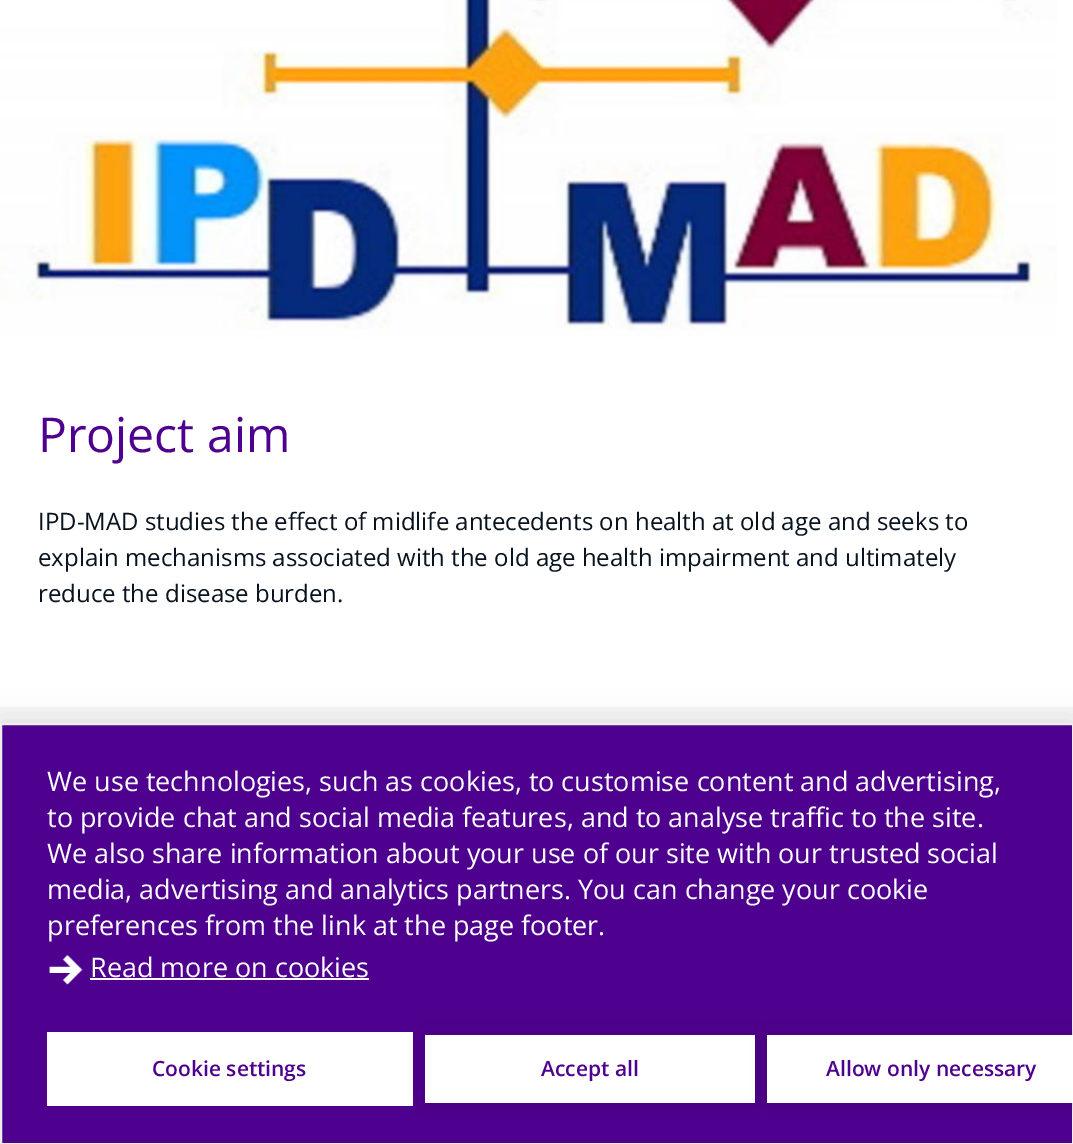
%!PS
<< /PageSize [1073 1144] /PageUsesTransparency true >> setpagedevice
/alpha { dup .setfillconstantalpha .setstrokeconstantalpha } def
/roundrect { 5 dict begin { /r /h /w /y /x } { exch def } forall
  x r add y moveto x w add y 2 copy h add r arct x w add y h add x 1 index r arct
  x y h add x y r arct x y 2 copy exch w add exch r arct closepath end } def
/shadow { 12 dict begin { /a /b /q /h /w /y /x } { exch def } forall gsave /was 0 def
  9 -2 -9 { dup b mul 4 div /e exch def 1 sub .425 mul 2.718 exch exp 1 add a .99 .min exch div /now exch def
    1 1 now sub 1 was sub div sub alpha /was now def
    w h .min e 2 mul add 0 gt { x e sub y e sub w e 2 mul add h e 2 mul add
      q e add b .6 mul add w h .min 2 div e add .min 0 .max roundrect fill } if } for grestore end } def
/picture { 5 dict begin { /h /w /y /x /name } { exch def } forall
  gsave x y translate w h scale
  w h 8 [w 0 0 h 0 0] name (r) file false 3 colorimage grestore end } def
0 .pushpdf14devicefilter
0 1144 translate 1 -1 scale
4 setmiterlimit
1 setgray
0 0 1073 1144 rectfill
(img1.rgb) 0 0 1057 337 picture
/OpenSans-Regular [48 0 0 -48 0 0] selectfont
0.306 0 0.557 setrgbcolor
38 452 moveto (Project aim) show
/OpenSans-Regular [24 0 0 -24 0 0] selectfont
0.031 0.075 0.122 setrgbcolor
38 530 moveto (IPD-MAD studies the effect of midlife antecedents on health at old age and seeks to) show
38 566 moveto (explain mechanisms associated with the old age health impairment and ultimately) show
38 602 moveto (reduce the disease burden.) show
0.961 setgray
0 707 1073 16 rectfill
0 setgray
0 723 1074 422 0 15 0.1 shadow
0.306 0 0.557 setrgbcolor
newpath 1 724 moveto 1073 724 lineto 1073 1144 lineto 1 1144 lineto closepath gsave fill grestore
0.933 setgray
2 setlinewidth
stroke
/OpenSans-Regular [27 0 0 -27 0 0] selectfont
1 setgray
47 791 moveto (We use technologies, such as cookies, to customise content and advertising,) show
47 827 moveto (to provide chat and social media features, and to analyse traffic to the site.) show
47 863 moveto (We also share information about your use of our site with our trusted social) show
47 899 moveto (media, advertising and analytics partners. You can change your cookie) show
47 935 moveto (preferences from the link at the page footer.) show
(img2.rgb) 49 955 34 30 picture
90 977 moveto (Read more on cookies) show
90 978 279 2 rectfill
47 1032 366 74 rectfill
/OpenSans-SemiBold [21 0 0 -21 0 0] selectfont
0.306 0 0.557 setrgbcolor
152 1076 moveto (Cookie settings) show
0 setgray
425 1035 330 68 0 7.5 0.12 shadow
1 setgray
425 1035 330 68 rectfill
0.306 0 0.557 setrgbcolor
541 1076 moveto (Accept all) show
0 setgray
767 1035 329 68 0 7.5 0.12 shadow
1 setgray
767 1035 306 68 rectfill
0.306 0 0.557 setrgbcolor
826 1076 moveto (Allow only necessary) show
.poppdf14devicefilter showpage
